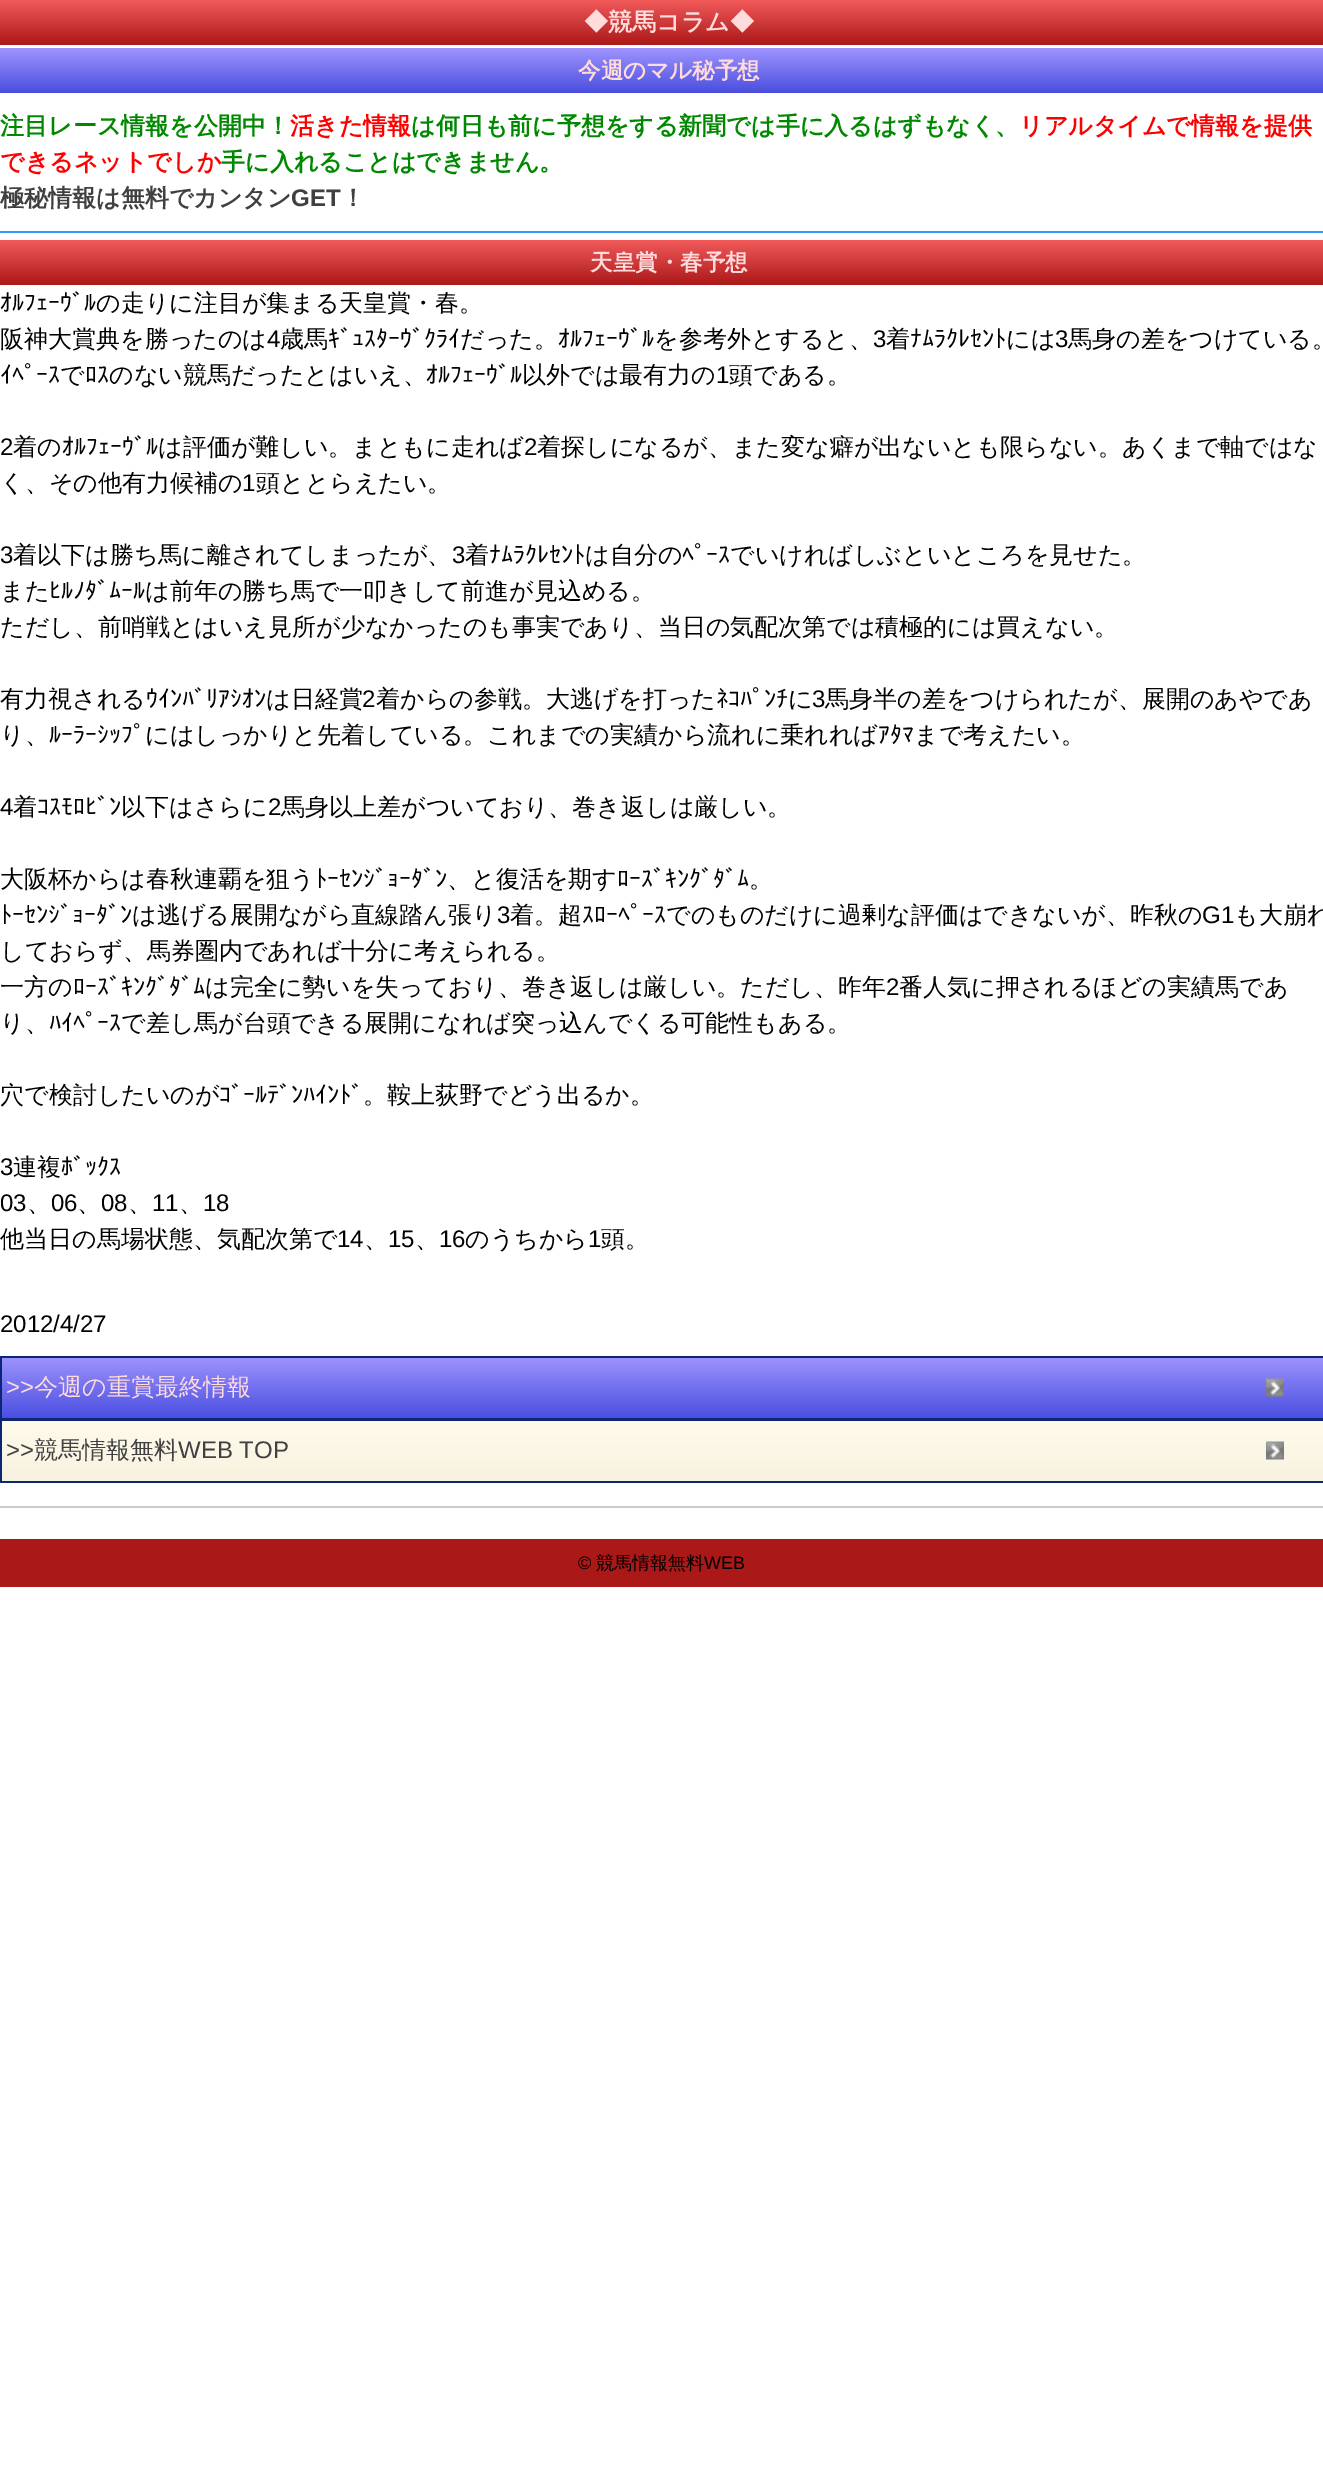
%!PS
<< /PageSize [1323 2479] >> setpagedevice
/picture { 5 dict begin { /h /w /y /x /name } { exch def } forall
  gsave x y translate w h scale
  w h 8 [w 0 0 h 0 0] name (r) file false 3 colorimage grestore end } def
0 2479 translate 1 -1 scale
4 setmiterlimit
1 setgray
0 0 1323 2479 rectfill
gsave newpath 0 0 moveto 1323 0 lineto 1323 45 lineto 0 45 lineto closepath clip newpath
<< /ShadingType 2 /ColorSpace /DeviceRGB /Coords [0 0 0 45] /Extend [true true] /Function << /FunctionType 2 /Domain [0 1] /C0 [0.949 0.353 0.353] /C1 [0.671 0.094 0.094] /N 1 >> >> shfill grestore
/WenQuanYiZenHei-Bold [24 0 0 -24 0 0] selectfont
1 0.859 0.863 setrgbcolor
584 30 moveto (◆競馬コラム◆) show
gsave newpath 0 48 moveto 1323 48 lineto 1323 93 lineto 0 93 lineto closepath clip newpath
<< /ShadingType 2 /ColorSpace /DeviceRGB /Coords [0 48 0 93] /Extend [true true] /Function << /FunctionType 2 /Domain [0 1] /C0 [0.624 0.58 1] /C1 [0.286 0.306 0.871] /N 1 >> >> shfill grestore
/WenQuanYiZenHei-Bold [22.5 0 0 -22.5 0 0] selectfont
578 78 moveto (今週のマル秘予想) show
0.2 0.6 1 setrgbcolor
0 231 1323 2 rectfill
/WenQuanYiZenHei-Bold [24 0 0 -24 0 0] selectfont
0 0.533 0 setrgbcolor
0 134 moveto (注目レース情報を公開中！) show
1 0 0 setrgbcolor
290 134 moveto (活きた情報) show
0 0.533 0 setrgbcolor
411 134 moveto (は何日も前に予想をする新聞では手に入るはずもなく、) show
1 0 0 setrgbcolor
1019 134 moveto (リアルタイムで情報を提供) show
0 170 moveto (できるネットでしか) show
0 0.533 0 setrgbcolor
221 170 moveto (手に入れることはできません。) show
0.251 setgray
0 206 moveto (極秘情報は無料でカンタン) show
/LiberationSans-Bold [24 0 0 -24 0 0] selectfont
291 206 moveto (GET) show
/WenQuanYiZenHei-Bold [24 0 0 -24 0 0] selectfont
341 206 moveto (！) show
gsave newpath 0 240 moveto 1323 240 lineto 1323 285 lineto 0 285 lineto closepath clip newpath
<< /ShadingType 2 /ColorSpace /DeviceRGB /Coords [0 240 0 285] /Extend [true true] /Function << /FunctionType 2 /Domain [0 1] /C0 [0.949 0.353 0.353] /C1 [0.671 0.094 0.094] /N 1 >> >> shfill grestore
/WenQuanYiZenHei-Bold [22.5 0 0 -22.5 0 0] selectfont
1 0.859 0.863 setrgbcolor
590 270 moveto (天皇賞・春予想) show
/IPAPGothic-Regular [24 0 0 -24 0 0] selectfont
0 setgray
0 311 moveto (ｵﾙﾌｪｰｳﾞﾙ) show
/WenQuanYiZenHei-Medium [24 0 0 -24 0 0] selectfont
96 311 moveto (の走りに注目が集まる天皇賞・春。) show
0 347 moveto (阪神大賞典を勝ったのは) show
/LiberationSans-Regular [24 0 0 -24 0 0] selectfont
267 347 moveto (4) show
/WenQuanYiZenHei-Medium [24 0 0 -24 0 0] selectfont
280 347 moveto (歳馬) show
/IPAPGothic-Regular [24 0 0 -24 0 0] selectfont
328 347 moveto (ｷﾞｭｽﾀｰｳﾞｸﾗｲ) show
/WenQuanYiZenHei-Medium [24 0 0 -24 0 0] selectfont
460 347 moveto (だった。) show
/IPAPGothic-Regular [24 0 0 -24 0 0] selectfont
558 347 moveto (ｵﾙﾌｪｰｳﾞﾙ) show
/WenQuanYiZenHei-Medium [24 0 0 -24 0 0] selectfont
654 347 moveto (を参考外とすると、) show
/LiberationSans-Regular [24 0 0 -24 0 0] selectfont
873 347 moveto (3) show
/WenQuanYiZenHei-Medium [24 0 0 -24 0 0] selectfont
886 347 moveto (着) show
/IPAPGothic-Regular [24 0 0 -24 0 0] selectfont
910 347 moveto (ﾅﾑﾗｸﾚｾﾝﾄ) show
/WenQuanYiZenHei-Medium [24 0 0 -24 0 0] selectfont
1006 347 moveto (には) show
/LiberationSans-Regular [24 0 0 -24 0 0] selectfont
1055 347 moveto (3) show
/WenQuanYiZenHei-Medium [24 0 0 -24 0 0] selectfont
1068 347 moveto (馬身の差をつけている。) show
/IPAPGothic-Regular [24 0 0 -24 0 0] selectfont
0 383 moveto (ｲﾍﾟｰｽ) show
/WenQuanYiZenHei-Medium [24 0 0 -24 0 0] selectfont
60 383 moveto (で) show
/IPAPGothic-Regular [24 0 0 -24 0 0] selectfont
85 383 moveto (ﾛｽ) show
/WenQuanYiZenHei-Medium [24 0 0 -24 0 0] selectfont
109 383 moveto (のない競馬だったとはいえ、) show
/IPAPGothic-Regular [24 0 0 -24 0 0] selectfont
426 383 moveto (ｵﾙﾌｪｰｳﾞﾙ) show
/WenQuanYiZenHei-Medium [24 0 0 -24 0 0] selectfont
522 383 moveto (以外では最有力の) show
/LiberationSans-Regular [24 0 0 -24 0 0] selectfont
716 383 moveto (1) show
/WenQuanYiZenHei-Medium [24 0 0 -24 0 0] selectfont
729 383 moveto (頭である。) show
/LiberationSans-Regular [24 0 0 -24 0 0] selectfont
0 455 moveto (2) show
/WenQuanYiZenHei-Medium [24 0 0 -24 0 0] selectfont
13 455 moveto (着の) show
/IPAPGothic-Regular [24 0 0 -24 0 0] selectfont
62 455 moveto (ｵﾙﾌｪｰｳﾞﾙ) show
/WenQuanYiZenHei-Medium [24 0 0 -24 0 0] selectfont
158 455 moveto (は評価が難しい。まともに走れば) show
/LiberationSans-Regular [24 0 0 -24 0 0] selectfont
524 455 moveto (2) show
/WenQuanYiZenHei-Medium [24 0 0 -24 0 0] selectfont
537 455 moveto (着探しになるが、また変な癖が出ないとも限らない。あくまで軸ではな) show
0 491 moveto (く、その他有力候補の) show
/LiberationSans-Regular [24 0 0 -24 0 0] selectfont
242 491 moveto (1) show
/WenQuanYiZenHei-Medium [24 0 0 -24 0 0] selectfont
256 491 moveto (頭ととらえたい。) show
/LiberationSans-Regular [24 0 0 -24 0 0] selectfont
0 563 moveto (3) show
/WenQuanYiZenHei-Medium [24 0 0 -24 0 0] selectfont
13 563 moveto (着以下は勝ち馬に離されてしまったが、) show
/LiberationSans-Regular [24 0 0 -24 0 0] selectfont
452 563 moveto (3) show
/WenQuanYiZenHei-Medium [24 0 0 -24 0 0] selectfont
465 563 moveto (着) show
/IPAPGothic-Regular [24 0 0 -24 0 0] selectfont
489 563 moveto (ﾅﾑﾗｸﾚｾﾝﾄ) show
/WenQuanYiZenHei-Medium [24 0 0 -24 0 0] selectfont
585 563 moveto (は自分の) show
/IPAPGothic-Regular [24 0 0 -24 0 0] selectfont
682 563 moveto (ﾍﾟｰｽ) show
/WenQuanYiZenHei-Medium [24 0 0 -24 0 0] selectfont
730 563 moveto (でいければしぶといところを見せた。) show
0 599 moveto (また) show
/IPAPGothic-Regular [24 0 0 -24 0 0] selectfont
49 599 moveto (ﾋﾙﾉﾀﾞﾑｰﾙ) show
/WenQuanYiZenHei-Medium [24 0 0 -24 0 0] selectfont
145 599 moveto (は前年の勝ち馬で一叩きして前進が見込める。) show
0 635 moveto (ただし、前哨戦とはいえ見所が少なかったのも事実であり、当日の気配次第では積極的には買えない。) show
0 707 moveto (有力視される) show
/IPAPGothic-Regular [24 0 0 -24 0 0] selectfont
146 707 moveto (ｳｲﾝﾊﾞﾘｱｼｵﾝ) show
/WenQuanYiZenHei-Medium [24 0 0 -24 0 0] selectfont
266 707 moveto (は日経賞) show
/LiberationSans-Regular [24 0 0 -24 0 0] selectfont
362 707 moveto (2) show
/WenQuanYiZenHei-Medium [24 0 0 -24 0 0] selectfont
376 707 moveto (着からの参戦。大逃げを打った) show
/IPAPGothic-Regular [24 0 0 -24 0 0] selectfont
716 707 moveto (ﾈｺﾊﾟﾝﾁ) show
/WenQuanYiZenHei-Medium [24 0 0 -24 0 0] selectfont
788 707 moveto (に) show
/LiberationSans-Regular [24 0 0 -24 0 0] selectfont
812 707 moveto (3) show
/WenQuanYiZenHei-Medium [24 0 0 -24 0 0] selectfont
825 707 moveto (馬身半の差をつけられたが、展開のあやであ) show
0 743 moveto (り、) show
/IPAPGothic-Regular [24 0 0 -24 0 0] selectfont
49 743 moveto (ﾙｰﾗｰｼｯﾌﾟ) show
/WenQuanYiZenHei-Medium [24 0 0 -24 0 0] selectfont
145 743 moveto (にはしっかりと先着している。これまでの実績から流れに乗れれば) show
/IPAPGothic-Regular [24 0 0 -24 0 0] selectfont
878 743 moveto (ｱﾀﾏ) show
/WenQuanYiZenHei-Medium [24 0 0 -24 0 0] selectfont
914 743 moveto (まで考えたい。) show
/LiberationSans-Regular [24 0 0 -24 0 0] selectfont
0 815 moveto (4) show
/WenQuanYiZenHei-Medium [24 0 0 -24 0 0] selectfont
13 815 moveto (着) show
/IPAPGothic-Regular [24 0 0 -24 0 0] selectfont
37 815 moveto (ｺｽﾓﾛﾋﾞﾝ) show
/WenQuanYiZenHei-Medium [24 0 0 -24 0 0] selectfont
121 815 moveto (以下はさらに) show
/LiberationSans-Regular [24 0 0 -24 0 0] selectfont
268 815 moveto (2) show
/WenQuanYiZenHei-Medium [24 0 0 -24 0 0] selectfont
281 815 moveto (馬身以上差がついており、巻き返しは厳しい。) show
0 887 moveto (大阪杯からは春秋連覇を狙う) show
/IPAPGothic-Regular [24 0 0 -24 0 0] selectfont
315 887 moveto (ﾄｰｾﾝｼﾞｮｰﾀﾞﾝ) show
/WenQuanYiZenHei-Medium [24 0 0 -24 0 0] selectfont
447 887 moveto (、と復活を期す) show
/IPAPGothic-Regular [24 0 0 -24 0 0] selectfont
617 887 moveto (ﾛｰｽﾞｷﾝｸﾞﾀﾞﾑ) show
/WenQuanYiZenHei-Medium [24 0 0 -24 0 0] selectfont
749 887 moveto (。) show
/IPAPGothic-Regular [24 0 0 -24 0 0] selectfont
0 923 moveto (ﾄｰｾﾝｼﾞｮｰﾀﾞﾝ) show
/WenQuanYiZenHei-Medium [24 0 0 -24 0 0] selectfont
132 923 moveto (は逃げる展開ながら直線踏ん張り) show
/LiberationSans-Regular [24 0 0 -24 0 0] selectfont
497 923 moveto (3) show
/WenQuanYiZenHei-Medium [24 0 0 -24 0 0] selectfont
510 923 moveto (着。超) show
/IPAPGothic-Regular [24 0 0 -24 0 0] selectfont
582 923 moveto (ｽﾛｰﾍﾟｰｽ) show
/WenQuanYiZenHei-Medium [24 0 0 -24 0 0] selectfont
666 923 moveto (でのものだけに過剰な評価はできないが、昨秋の) show
/LiberationSans-Regular [24 0 0 -24 0 0] selectfont
1202 923 moveto (G1) show
/WenQuanYiZenHei-Medium [24 0 0 -24 0 0] selectfont
1234 923 moveto (も大崩れ) show
0 959 moveto (しておらず、馬券圏内であれば十分に考えられる。) show
0 995 moveto (一方の) show
/IPAPGothic-Regular [24 0 0 -24 0 0] selectfont
73 995 moveto (ﾛｰｽﾞｷﾝｸﾞﾀﾞﾑ) show
/WenQuanYiZenHei-Medium [24 0 0 -24 0 0] selectfont
205 995 moveto (は完全に勢いを失っており、巻き返しは厳しい。ただし、昨年) show
/LiberationSans-Regular [24 0 0 -24 0 0] selectfont
886 995 moveto (2) show
/WenQuanYiZenHei-Medium [24 0 0 -24 0 0] selectfont
899 995 moveto (番人気に押されるほどの実績馬であ) show
0 1031 moveto (り、) show
/IPAPGothic-Regular [24 0 0 -24 0 0] selectfont
49 1031 moveto (ﾊｲﾍﾟｰｽ) show
/WenQuanYiZenHei-Medium [24 0 0 -24 0 0] selectfont
121 1031 moveto (で差し馬が台頭できる展開になれば突っ込んでくる可能性もある。) show
0 1103 moveto (穴で検討したいのが) show
/IPAPGothic-Regular [24 0 0 -24 0 0] selectfont
219 1103 moveto (ｺﾞｰﾙﾃﾞﾝﾊｲﾝﾄﾞ) show
/WenQuanYiZenHei-Medium [24 0 0 -24 0 0] selectfont
363 1103 moveto (。鞍上荻野でどう出るか。) show
/LiberationSans-Regular [24 0 0 -24 0 0] selectfont
0 1175 moveto (3) show
/WenQuanYiZenHei-Medium [24 0 0 -24 0 0] selectfont
13 1175 moveto (連複) show
/IPAPGothic-Regular [24 0 0 -24 0 0] selectfont
61 1175 moveto (ﾎﾞｯｸｽ) show
/LiberationSans-Regular [24 0 0 -24 0 0] selectfont
0 1211 moveto (03) show
/WenQuanYiZenHei-Medium [24 0 0 -24 0 0] selectfont
27 1211 moveto (、) show
/LiberationSans-Regular [24 0 0 -24 0 0] selectfont
51 1211 moveto (06) show
/WenQuanYiZenHei-Medium [24 0 0 -24 0 0] selectfont
77 1211 moveto (、) show
/LiberationSans-Regular [24 0 0 -24 0 0] selectfont
101 1211 moveto (08) show
/WenQuanYiZenHei-Medium [24 0 0 -24 0 0] selectfont
128 1211 moveto (、) show
/LiberationSans-Regular [24 0 0 -24 0 0] selectfont
152 1211 moveto (11) show
/WenQuanYiZenHei-Medium [24 0 0 -24 0 0] selectfont
179 1211 moveto (、) show
/LiberationSans-Regular [24 0 0 -24 0 0] selectfont
203 1211 moveto (18) show
/WenQuanYiZenHei-Medium [24 0 0 -24 0 0] selectfont
0 1247 moveto (他当日の馬場状態、気配次第で) show
/LiberationSans-Regular [24 0 0 -24 0 0] selectfont
337 1247 moveto (14) show
388 1247 moveto (15) show
439 1247 moveto (16) show
/WenQuanYiZenHei-Medium [24 0 0 -24 0 0] selectfont
465 1247 moveto (のうちから) show
/LiberationSans-Regular [24 0 0 -24 0 0] selectfont
588 1247 moveto (1) show
/WenQuanYiZenHei-Medium [24 0 0 -24 0 0] selectfont
601 1247 moveto (頭。) show
364 1247 moveto (、) show
415 1247 moveto (、) show
/LiberationSans-Regular [24 0 0 -24 0 0] selectfont
0 1332 moveto (2012/4/27) show
gsave newpath 2 1358 moveto 1323 1358 lineto 1323 1418 lineto 2 1418 lineto closepath clip newpath
<< /ShadingType 2 /ColorSpace /DeviceRGB /Coords [0 1356 0 1419] /Extend [true true] /Function << /FunctionType 2 /Domain [0 1] /C0 [0.624 0.58 1] /C1 [0.286 0.306 0.871] /N 1 >> >> shfill grestore
(img1.rgb) 1266 1378 18 19 picture
0.047 0.149 0.463 setrgbcolor
0 1356 1323 2 rectfill
0 1420 1323 1 rectfill
0 1481 1323 2 rectfill
0 1419 2 63 rectfill
0 1418 1323 2 rectfill
0 1356 2 63 rectfill
1 0.859 0.863 setrgbcolor
6 1395 moveto (>>) show
/WenQuanYiZenHei-Medium [24 0 0 -24 0 0] selectfont
34 1395 moveto (今週の重賞最終情報) show
gsave newpath 2 1421 moveto 1323 1421 lineto 1323 1481 lineto 2 1481 lineto closepath clip newpath
<< /ShadingType 2 /ColorSpace /DeviceRGB /Coords [0 1419 0 1482] /Extend [true true] /Function << /FunctionType 2 /Domain [0 1] /C0 [1 0.984 0.929] /C1 [0.969 0.949 0.875] /N 1 >> >> shfill grestore
(img2.rgb) 1266 1441 18 19 picture
/LiberationSans-Regular [24 0 0 -24 0 0] selectfont
0.251 setgray
6 1458 moveto (>>) show
/WenQuanYiZenHei-Medium [24 0 0 -24 0 0] selectfont
34 1458 moveto (競馬情報無料) show
/LiberationSans-Regular [24 0 0 -24 0 0] selectfont
178 1458 moveto (WEB TOP) show
0.8 setgray
0 1506 1323 2 rectfill
0.671 0.094 0.094 setrgbcolor
0 1539 1323 48 rectfill
/LiberationSans-Regular [18 0 0 -18 0 0] selectfont
0 setgray
578 1569 moveto (©) show
/WenQuanYiZenHei-Medium [18 0 0 -18 0 0] selectfont
596 1569 moveto (競馬情報無料) show
/LiberationSans-Regular [18 0 0 -18 0 0] selectfont
704 1569 moveto (WEB) show
showpage
